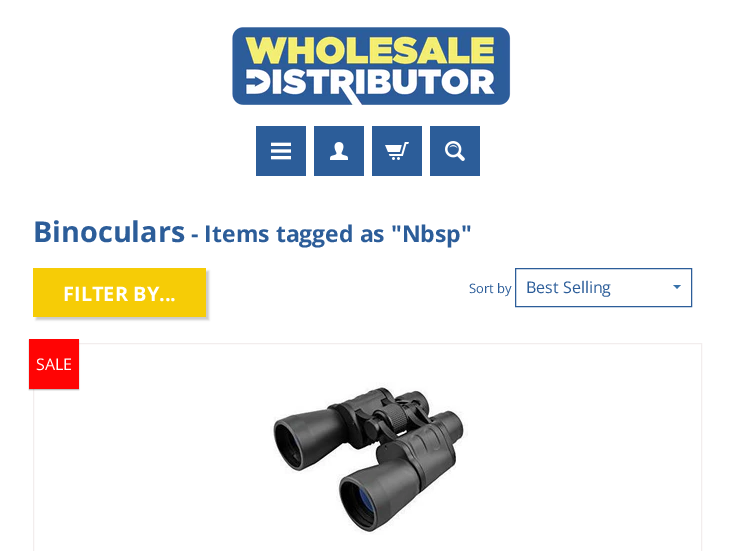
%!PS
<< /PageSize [735 551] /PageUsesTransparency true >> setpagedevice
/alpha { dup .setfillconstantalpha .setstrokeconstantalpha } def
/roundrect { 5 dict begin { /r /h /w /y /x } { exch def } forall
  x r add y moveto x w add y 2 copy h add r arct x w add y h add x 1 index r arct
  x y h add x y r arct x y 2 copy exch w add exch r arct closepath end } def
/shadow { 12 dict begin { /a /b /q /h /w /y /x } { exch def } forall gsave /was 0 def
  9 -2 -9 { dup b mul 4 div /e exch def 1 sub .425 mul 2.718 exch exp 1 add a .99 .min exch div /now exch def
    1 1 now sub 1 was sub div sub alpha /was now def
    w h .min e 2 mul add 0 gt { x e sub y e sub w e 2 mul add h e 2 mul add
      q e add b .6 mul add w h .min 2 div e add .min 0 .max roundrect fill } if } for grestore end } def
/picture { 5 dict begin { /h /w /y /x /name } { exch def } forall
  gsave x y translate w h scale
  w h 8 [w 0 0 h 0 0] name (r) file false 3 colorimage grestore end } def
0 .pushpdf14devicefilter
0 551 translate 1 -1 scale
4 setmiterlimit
1 setgray
0 0 735 551 rectfill
(img1.rgb) 232 27 279 78 picture
0.173 0.365 0.6 setrgbcolor
256 126 50 50 rectfill
(img2.rgb) 271 142 20 18 picture
314 126 50 50 rectfill
(img3.rgb) 330 142 18 18 picture
372 126 50 50 rectfill
(img4.rgb) 385 142 24 18 picture
430 126 50 50 rectfill
(img5.rgb) 445 141 20 20 picture
/OpenSans-Bold [28.75 0 0 -28.75 0 0] selectfont
33 242 moveto (Binoculars) show
/OpenSans-Bold [23 0 0 -23 0 0] selectfont
191 242 moveto (- Items tagged as "Nbsp") show
0 setgray
36 271 173 49 0 1 0.2 shadow
0.965 0.8 0.024 setrgbcolor
33 268 173 49 rectfill
/OpenSans-Bold [20 0 0 -20 0 0] selectfont
1 setgray
63 301 moveto (FILTER BY...) show
/OpenSans-Regular [13 0 0 -13 0 0] selectfont
0.173 0.365 0.6 setrgbcolor
469 293 moveto (Sort by) show
(img6.rgb) 673 285 8 4 picture
515.5 268.5 176 38 rectstroke
/OpenSans-Regular [16 0 0 -16 0 0] selectfont
526 293 moveto (Best Selling) show
0.949 0.929 0.929 setrgbcolor
33.5 343.5 668 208 rectstroke
0 setgray
29 340 50 50 0 0.5 0.3 shadow
1 0.016 0.016 setrgbcolor
29 339 50 50 rectfill
1 setgray
36 370 moveto (SALE) show
(img7.rgb) 270 382 198 153 picture
.poppdf14devicefilter showpage
